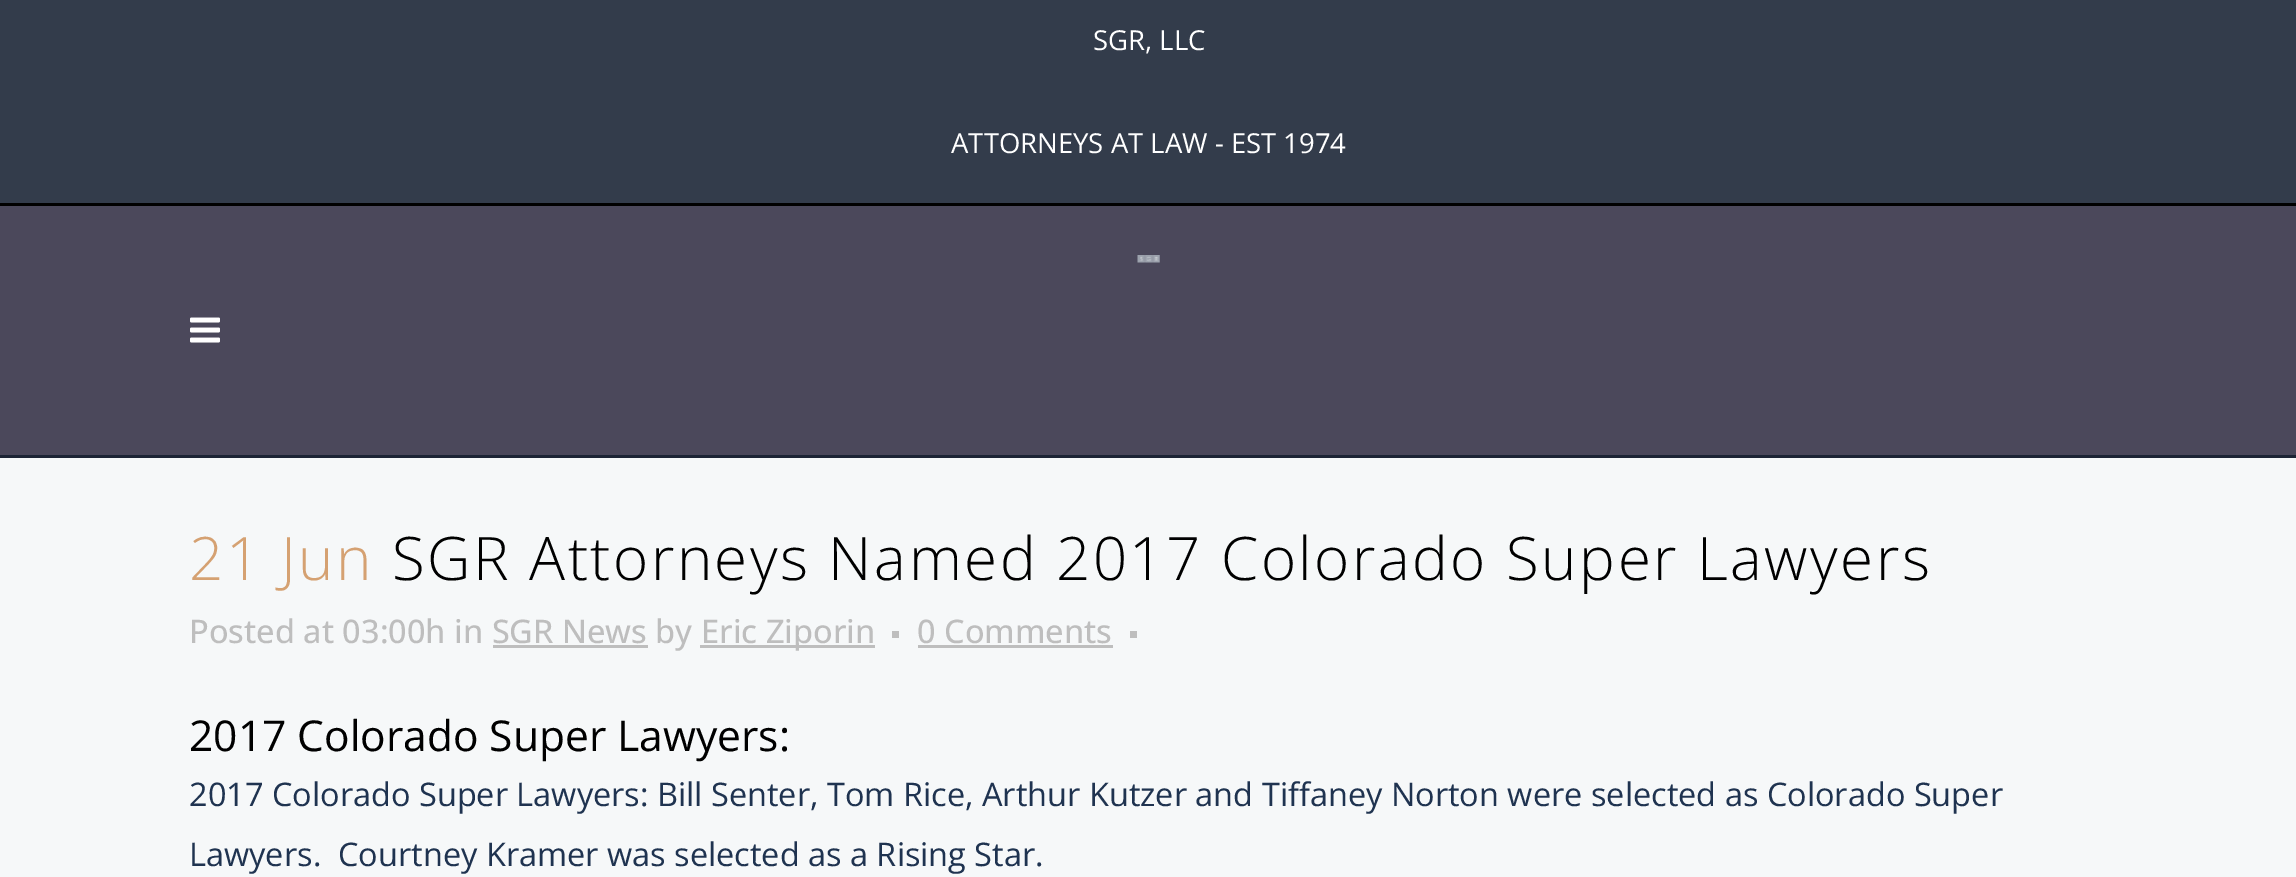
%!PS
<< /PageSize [2296 877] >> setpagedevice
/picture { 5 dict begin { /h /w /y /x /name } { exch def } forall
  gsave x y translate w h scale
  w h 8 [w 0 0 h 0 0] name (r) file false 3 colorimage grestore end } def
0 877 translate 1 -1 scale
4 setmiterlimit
0.965 0.973 0.976 setrgbcolor
0 0 2296 877 rectfill
0.2 0.235 0.294 setrgbcolor
0 0 2296 203 rectfill
0 setgray
0 203 2296 3 rectfill
/OpenSans-Regular [27.5 0 0 -27.5 0 0] selectfont
1 setgray
1093 50 moveto (SGR, LLC) show
951 153 moveto (ATTORNEYS AT LAW - EST 1974) show
0.294 0.282 0.357 setrgbcolor
0 206 2296 249 rectfill
0.11 0.141 0.208 setrgbcolor
0 455 2296 3 rectfill
(img1.rgb) 1137 255 23 8 picture
(img2.rgb) 190 317 30 26 picture
/OpenSans-Light [60 0 0 -60 0 0] selectfont
0.835 0.631 0.447 setrgbcolor
189 580 moveto 2.5 0 (21 Jun) ashow
0 setgray
392 580 moveto 2.5 0 (SGR Attorneys Named 2017 Colorado Super Lawyers) ashow
/OpenSans-Medium [32.5 0 0 -32.5 0 0] selectfont
0.745 setgray
189 643 moveto (Posted at 03:00h in SGR News by) show
700 645 175 3 rectfill
701 643 moveto (Eric Ziporin) show
892 631 7 7 rectfill
917 643 moveto (0 Comments) show
918 645 195 3 rectfill
1130 631 7 7 rectfill
493 645 155 3 rectfill
/OpenSans-Regular [42.5 0 0 -42.5 0 0] selectfont
0 setgray
189 751 moveto (2017 Colorado Super Lawyers:) show
/OpenSans-Regular [32.5 0 0 -32.5 0 0] selectfont
0.122 0.2 0.314 setrgbcolor
189 806 moveto (2017 Colorado Super Lawyers: Bill Senter, Tom Rice, Arthur Kutzer and Tiffaney Norton were selected as Colorado Super) show
189 866 moveto (Lawyers.  Courtney Kramer was selected as a Rising Star.) show
showpage
